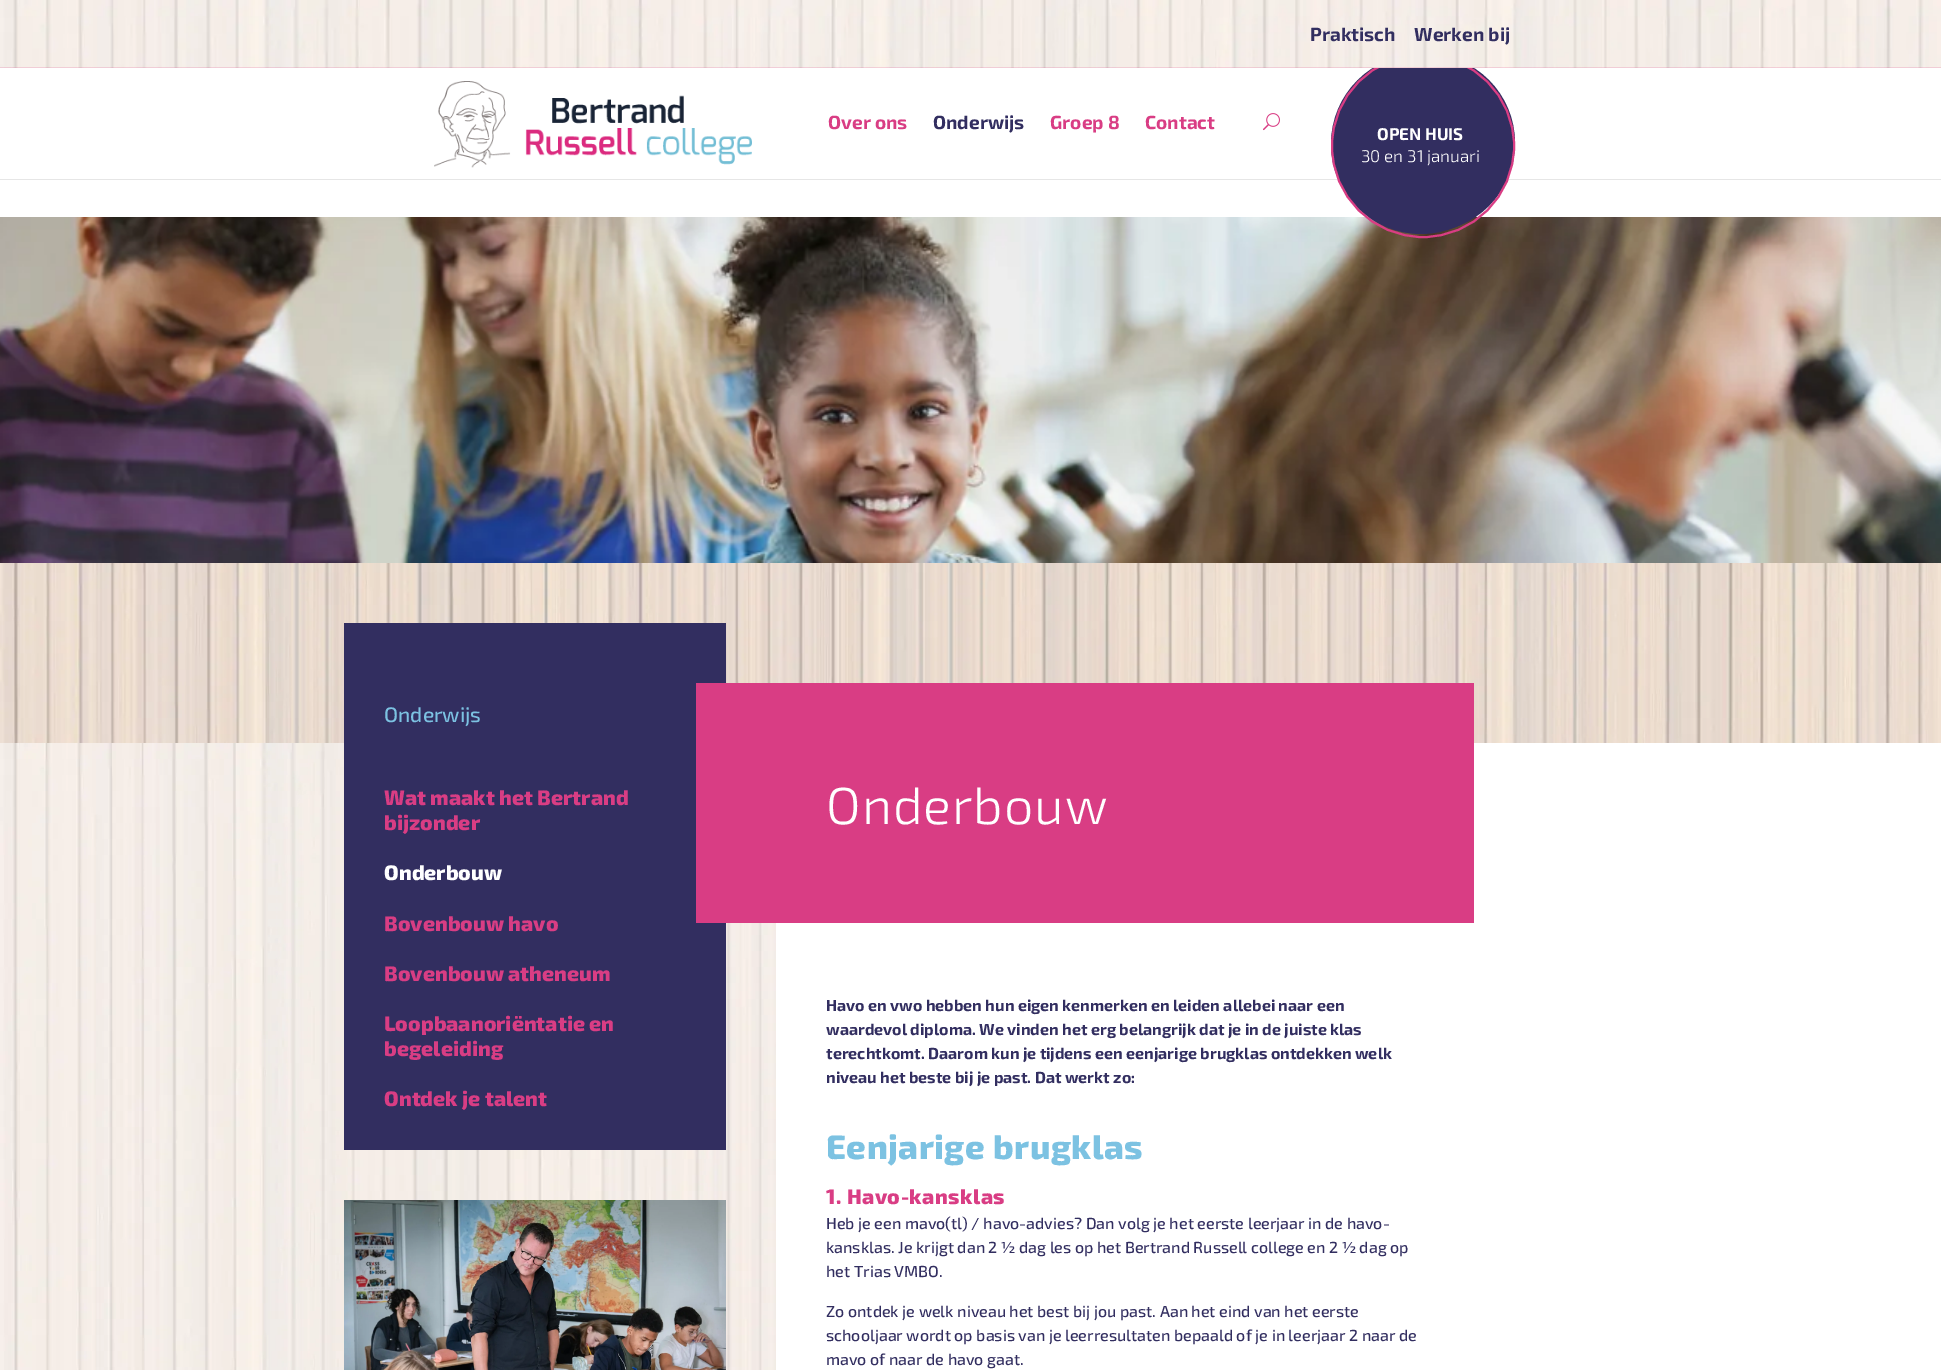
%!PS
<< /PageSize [1941 1370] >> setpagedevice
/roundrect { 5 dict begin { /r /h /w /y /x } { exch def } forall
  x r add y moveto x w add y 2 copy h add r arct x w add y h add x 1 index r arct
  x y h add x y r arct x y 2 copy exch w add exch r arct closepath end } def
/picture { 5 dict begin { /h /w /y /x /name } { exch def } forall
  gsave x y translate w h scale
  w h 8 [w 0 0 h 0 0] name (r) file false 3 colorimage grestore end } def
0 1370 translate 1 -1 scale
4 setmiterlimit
1 setgray
0 0 1941 1370 rectfill
0.902 setgray
0 179 1941 1 rectfill
(img5.rgb) 0 217 1941 346 picture
0.196 0.18 0.376 setrgbcolor
1335 54 180 178 89 roundrect fill
newpath 1421 144 90 0 360 arc closepath fill
/Exo2-Bold [17 0 0 -17 0 0] selectfont
1 setgray
1377 140 moveto (OPEN HUIS) show
/Exo2-Light [17 0 0 -17 0 0] selectfont
1361 162 moveto (30 en 31 januari) show
0.851 0.239 0.518 setrgbcolor
2 setlinewidth
newpath 1423 146 91 0 360 arc closepath stroke
(img1.rgb) 0 0 1941 68 picture
/Exo2-Bold [19 0 0 -19 0 0] selectfont
0.196 0.18 0.376 setrgbcolor
1310 41 moveto (Praktisch) show
1414 41 moveto (Werken bij) show
(img2.rgb) 434 81 318 87 picture
(img3.rgb) 1263 113 17 18 picture
0.851 0.239 0.518 setrgbcolor
828 129 moveto (Over ons) show
0.196 0.18 0.376 setrgbcolor
933 129 moveto (Onderwijs) show
0.851 0.239 0.518 setrgbcolor
1050 129 moveto (Groep 8) show
1145 129 moveto (Contact) show
(img4.rgb) 0 563 1941 180 picture
(img6.rgb) 0 743 776 627 picture
0.196 0.18 0.376 setrgbcolor
344 623 382 527 rectfill
/Exo2-Medium [21 0 0 -21 0 0] selectfont
0.486 0.761 0.886 setrgbcolor
384 722 moveto (Onderwijs) show
/Exo2-ExtraBold [21 0 0 -21 0 0] selectfont
0.851 0.239 0.518 setrgbcolor
384 805 moveto (Wat maakt het Bertrand) show
384 830 moveto (bijzonder) show
1 setgray
384 880 moveto (Onderbouw) show
0.851 0.239 0.518 setrgbcolor
384 931 moveto (Bovenbouw havo) show
384 981 moveto (Bovenbouw atheneum) show
384 1031 moveto (Loopbaanoriëntatie en) show
384 1056 moveto (begeleiding) show
384 1106 moveto (Ontdek je talent) show
(img7.rgb) 344 1200 382 170 picture
696 683 778 240 rectfill
/Exo2-Light [52 0 0 -52 0 0] selectfont
1 setgray
826 824 moveto 1 0 (Onderbouw) ashow
/Exo2-Bold [16 0 0 -16 0 0] selectfont
0.196 0.18 0.376 setrgbcolor
826 1011 moveto (Havo en vwo hebben hun eigen kenmerken en leiden allebei naar een) show
826 1035 moveto (waardevol diploma. We vinden het erg belangrijk dat je in de juiste klas) show
826 1059 moveto (terechtkomt. Daarom kun je tijdens een eenjarige brugklas ontdekken welk) show
826 1083 moveto (niveau het beste bij je past. Dat werkt zo:) show
/Exo2-ExtraBold [34 0 0 -34 0 0] selectfont
0.486 0.761 0.886 setrgbcolor
826 1159 moveto 0.5 0 (Eenjarige brugklas) ashow
/Exo2-ExtraBold [21 0 0 -21 0 0] selectfont
0.851 0.239 0.518 setrgbcolor
826 1204 moveto 0.5 0 (1. Havo-kansklas) ashow
/Exo2-Medium [16 0 0 -16 0 0] selectfont
0.196 0.18 0.376 setrgbcolor
826 1229 moveto (Heb je een mavo\(tl\) / havo-advies? Dan volg je het eerste leerjaar in de havo-) show
826 1253 moveto (kansklas. Je krijgt dan 2 ½ dag les op het Bertrand Russell college en 2 ½ dag op) show
826 1277 moveto (het Trias VMBO.) show
826 1317 moveto (Zo ontdek je welk niveau het best bij jou past. Aan het eind van het eerste) show
826 1341 moveto (schooljaar wordt op basis van je leerresultaten bepaald of je in leerjaar 2 naar de) show
826 1365 moveto (mavo of naar de havo gaat.) show
showpage
